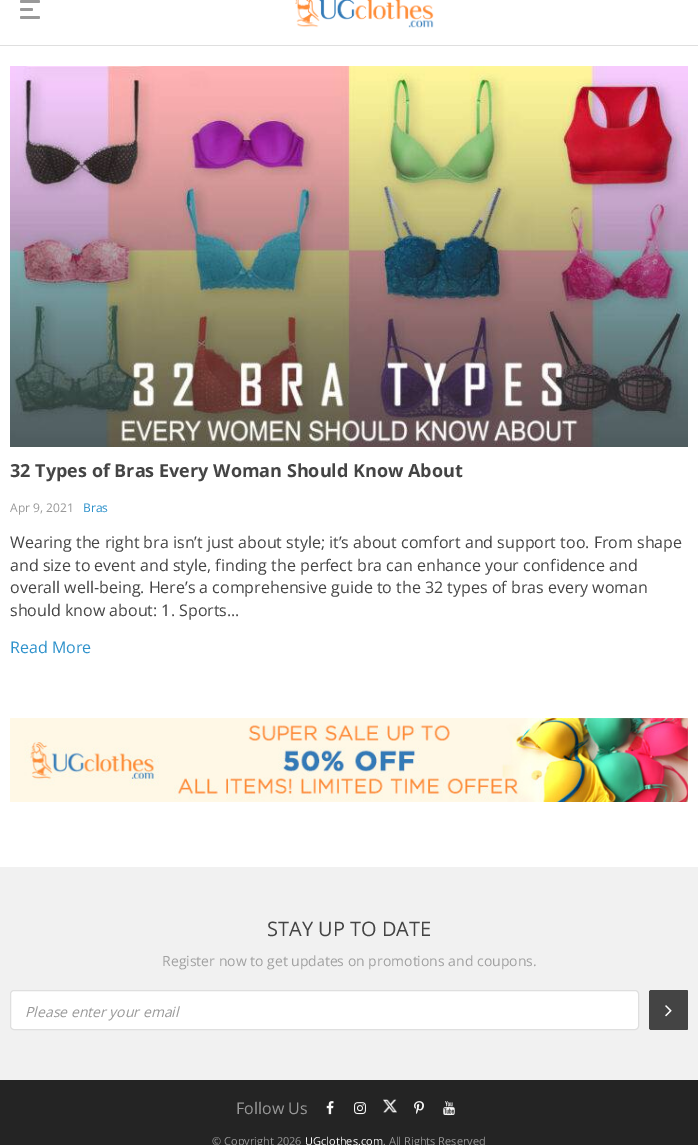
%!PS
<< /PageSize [698 1145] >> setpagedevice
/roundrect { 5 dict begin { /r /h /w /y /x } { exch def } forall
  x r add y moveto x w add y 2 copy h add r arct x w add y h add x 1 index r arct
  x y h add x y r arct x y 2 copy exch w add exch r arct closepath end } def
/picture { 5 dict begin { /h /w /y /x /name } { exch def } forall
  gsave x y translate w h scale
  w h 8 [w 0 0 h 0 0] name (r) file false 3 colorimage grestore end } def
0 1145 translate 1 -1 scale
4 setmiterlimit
1 setgray
0 0 698 1145 rectfill
0.875 setgray
0 45 698 1 rectfill
0.6 setgray
20 0 20 3 1.5 roundrect fill
20 8 13 3 1.5 roundrect fill
20 16 20 3 1.5 roundrect fill
(img1.rgb) 295 0 139 28 picture
(img2.rgb) 10 66 678 381 picture
/OpenSans-Bold [18 0 0 -18 0 0] selectfont
0.267 setgray
10 477 moveto (32 Types of Bras Every Woman Should Know About) show
/OpenSans-Regular [12 0 0 -12 0 0] selectfont
0.6 setgray
10 512 moveto (Apr 9, 2021) show
0.173 0.569 0.796 setrgbcolor
83 512 moveto (Bras) show
/OpenSans-Regular [16 0 0 -16 0 0] selectfont
0.267 setgray
10 548 moveto (Wearing the right bra isn’t just about style; it’s about comfort and support too. From shape) show
10 571 moveto (and size to event and style, finding the perfect bra can enhance your confidence and) show
10 593 moveto (overall well-being. Here’s a comprehensive guide to the 32 types of bras every woman) show
10 616 moveto (should know about: 1. Sports...) show
0.173 0.569 0.796 setrgbcolor
10 653 moveto (Read More) show
(img3.rgb) 10 718 678 84 picture
0.945 setgray
0 867 698 213 rectfill
/OpenSans-Regular [20 0 0 -20 0 0] selectfont
0.267 setgray
267 936 moveto (STAY UP TO DATE) show
/OpenSans-Regular [14 0 0 -14 0 0] selectfont
0.631 setgray
162 966 moveto (Register now to get updates on promotions and coupons.) show
1 setgray
10.5 990.5 628 39 3.5 roundrect gsave fill grestore
0.875 setgray
stroke
gsave
649 990 39 40 3 roundrect clip newpath
0.267 setgray
649 990 40 40 3 roundrect fill
grestore
0.267 setgray
newpath 652 990 moveto 650 990 649 991 649 993 curveto 649 1027 lineto 649 1029 650 1030 652 1030 curveto 685 1030 lineto 687 1030 688 1029 688 1027 curveto 688 1028 687 1029 686 1029 curveto 652 1029 lineto 651 1029 650 1028 650 1027 curveto 650 993 lineto 650 992 651 991 652 991 curveto 686 991 lineto 687 991 688 992 688 993 curveto 688 991 687 990 685 990 curveto closepath fill
(img4.rgb) 665 1005 7 12 picture
/OpenSans-Italic [14 0 0 -14 0 0] selectfont
0.6 setgray
25 1017 moveto (Please enter your email) show
0.141 setgray
0 1080 698 65 rectfill
/OpenSans-Regular [16 0 0 -16 0 0] selectfont
0.6 setgray
236 1114 moveto (Follow Us) show
(img5.rgb) 326 1101 8 14 picture
(img6.rgb) 354 1102 12 13 picture
(img7.rgb) 383 1099 14 14 picture
(img8.rgb) 414 1101 10 13 picture
(img9.rgb) 443 1101 12 15 picture
/OpenSans-Regular [11 0 0 -11 0 0] selectfont
212 1145 moveto (© Copyright 2026) show
0.973 setgray
305 1145 moveto (UGclothes.com) show
0.6 setgray
383 1145 moveto (. All Rights Reserved) show
showpage
